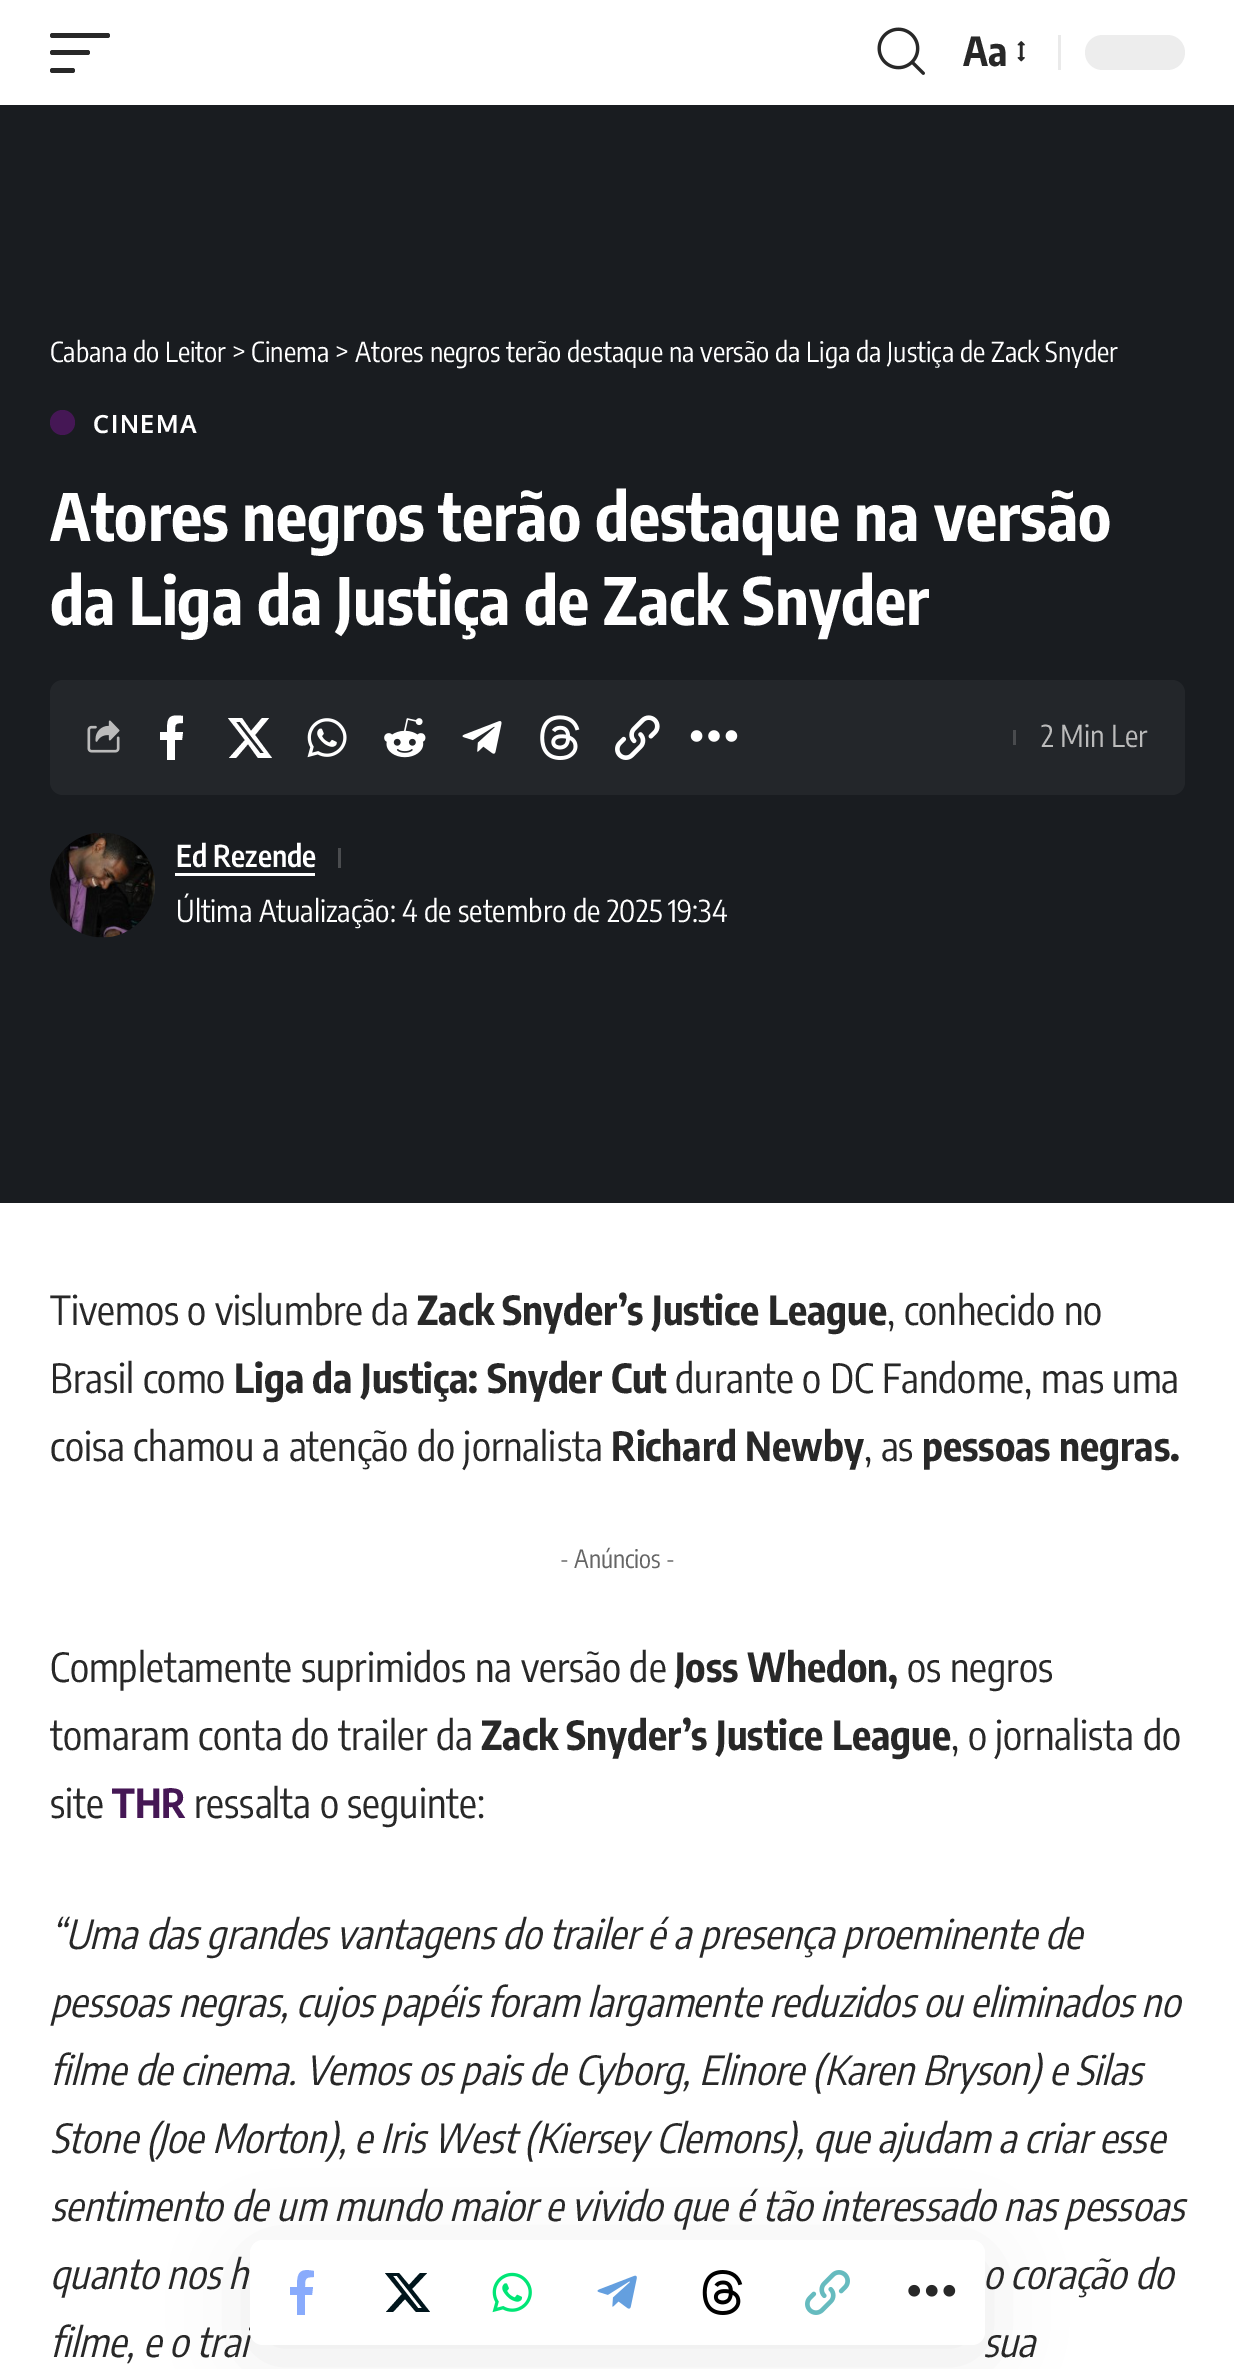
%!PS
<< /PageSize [1234 2369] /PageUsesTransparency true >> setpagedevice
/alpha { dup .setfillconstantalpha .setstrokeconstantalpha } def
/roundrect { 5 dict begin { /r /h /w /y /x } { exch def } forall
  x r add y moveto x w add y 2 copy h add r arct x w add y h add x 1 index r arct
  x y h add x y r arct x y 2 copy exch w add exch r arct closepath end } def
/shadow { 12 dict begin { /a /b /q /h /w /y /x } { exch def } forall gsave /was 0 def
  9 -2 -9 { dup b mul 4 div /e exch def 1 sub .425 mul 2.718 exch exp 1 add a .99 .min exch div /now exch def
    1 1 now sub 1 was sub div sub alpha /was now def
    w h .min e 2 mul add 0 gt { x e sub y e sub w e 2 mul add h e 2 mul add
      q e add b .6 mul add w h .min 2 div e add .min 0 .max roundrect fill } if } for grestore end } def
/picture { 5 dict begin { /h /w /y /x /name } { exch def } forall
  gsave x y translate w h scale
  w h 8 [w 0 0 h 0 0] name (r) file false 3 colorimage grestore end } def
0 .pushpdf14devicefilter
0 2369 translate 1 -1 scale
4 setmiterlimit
1 setgray
0 0 1234 2369 rectfill
0.157 setgray
50 33 60 5 2.5 roundrect fill
50 50 40 5 2.5 roundrect fill
50 68 25 5 2.5 roundrect fill
(img1.rgb) 877 27 48 48 picture
/EncodeSansCondensed-Bold [40 0 0 -40 0 0] selectfont
963 66 moveto (Aa) show
(img2.rgb) 1017 41 8 21 picture
0.918 setgray
1058 35 3 35 rectfill
0.929 setgray
1085 35 100 35 17.5 roundrect fill
0.098 0.11 0.125 setrgbcolor
0 105 1234 1098 rectfill
/EncodeSansCondensed-Regular [27.5 0 0 -27.5 0 0] selectfont
1 setgray
50 362 moveto (Cabana do Leitor > Cinema > Atores negros terão destaque na versão da Liga da Justiça de Zack Snyder) show
0.271 0.09 0.333 setrgbcolor
newpath 62.5 422.5 12.5 0 360 arc closepath fill
/Oxygen-Bold [25 0 0 -25 0 0] selectfont
1 setgray
93 433 moveto 1.75 0 (CINEMA) ashow
/EncodeSansCondensed-Bold [65 0 0 -65 0 0] selectfont
50 541 moveto (Atores negros terão destaque na versão) show
50 625 moveto (da Liga da Justiça de Zack Snyder) show
0.137 0.149 0.165 setrgbcolor
50 680 1135 115 13 roundrect fill
(img3.rgb) 87 720 33 33 picture
1 setgray
newpath 182 740 moveto 183 732 lineto 175 732 lineto 175 724 175 723 183 723 curveto 183 716 lineto 168 714 167 718 167 732 curveto 160 732 lineto 160 740 lineto 167 740 lineto 167 760 lineto 175 760 lineto 175 740 lineto closepath fill
newpath 262 718 moveto 269 718 lineto 255 735 lineto 272 758 lineto 258 758 lineto 248 744 lineto 236 758 lineto 229 758 lineto 245 740 lineto 228 718 lineto 242 718 lineto 251 731 lineto closepath 260 753 moveto 264 753 lineto 240 722 lineto 236 722 lineto closepath fill
(img4.rgb) 307 718 40 40 picture
(img5.rgb) 384 718 42 40 picture
(img6.rgb) 462 721 40 33 picture
(img7.rgb) 540 715 40 45 picture
(img8.rgb) 615 715 45 45 picture
(img9.rgb) 690 730 48 12 picture
0.286 0.294 0.306 setrgbcolor
1013 730 3 15 rectfill
/EncodeSansCondensed-Regular [30 0 0 -30 0 0] selectfont
0.733 setgray
1041 747 moveto (2 Min Ler) show
(img10.rgb) 50 833 105 105 picture
/EncodeSansCondensed-SemiBold [30 0 0 -30 0 0] selectfont
1 setgray
176 867 moveto (Ed Rezende) show
175 873 140 3 rectfill
0.29 0.298 0.31 setrgbcolor
338 848 3 20 rectfill
/EncodeSansCondensed-Regular [30 0 0 -30 0 0] selectfont
1 setgray
176 922 moveto (Última Atualização: 4 de setembro de 2025 19:34) show
/EncodeSansCondensed-Regular [40 0 0 -40 0 0] selectfont
0.157 setgray
50 1325 moveto (Tivemos o vislumbre da) show
/EncodeSansCondensed-Bold [40 0 0 -40 0 0] selectfont
417 1325 moveto (Zack Snyder’s Justice League) show
/EncodeSansCondensed-Regular [40 0 0 -40 0 0] selectfont
887 1325 moveto (, conhecido no) show
50 1393 moveto (Brasil como) show
/EncodeSansCondensed-Bold [40 0 0 -40 0 0] selectfont
234 1393 moveto (Liga da Justiça: Snyder Cut) show
/EncodeSansCondensed-Regular [40 0 0 -40 0 0] selectfont
675 1393 moveto (durante o DC Fandome, mas uma) show
50 1461 moveto (coisa chamou a atenção do jornalista) show
/EncodeSansCondensed-Bold [40 0 0 -40 0 0] selectfont
611 1461 moveto (Richard Newby) show
/EncodeSansCondensed-Regular [40 0 0 -40 0 0] selectfont
864 1461 moveto (, as) show
/EncodeSansCondensed-Bold [40 0 0 -40 0 0] selectfont
922 1461 moveto (pessoas negras.) show
/EncodeSansCondensed-Regular [25 0 0 -25 0 0] selectfont
0.4 setgray
560 1568 moveto (- Anúncios -) show
/EncodeSansCondensed-Regular [40 0 0 -40 0 0] selectfont
0.157 setgray
50 1682 moveto (Completamente suprimidos na versão de) show
/EncodeSansCondensed-Bold [40 0 0 -40 0 0] selectfont
675 1682 moveto (Joss Whedon,) show
/EncodeSansCondensed-Regular [40 0 0 -40 0 0] selectfont
907 1682 moveto (os negros) show
50 1750 moveto (tomaram conta do trailer da) show
/EncodeSansCondensed-Bold [40 0 0 -40 0 0] selectfont
481 1750 moveto (Zack Snyder’s Justice League) show
/EncodeSansCondensed-Regular [40 0 0 -40 0 0] selectfont
951 1750 moveto (, o jornalista do) show
50 1818 moveto (site) show
/EncodeSansCondensed-Bold [40 0 0 -40 0 0] selectfont
0.271 0.09 0.333 setrgbcolor
112 1818 moveto (THR) show
/EncodeSansCondensed-Regular [40 0 0 -40 0 0] selectfont
0.157 setgray
194 1818 moveto (ressalta o seguinte:) show
/EncodeSansCondensed-Italic [40 0 0 -40 0 0] selectfont
50 1949 moveto (“Uma das grandes vantagens do trailer é a presença proeminente de) show
50 2017 moveto (pessoas negras, cujos papéis foram largamente reduzidos ou eliminados no) show
50 2085 moveto (filme de cinema. Vemos os pais de Cyborg, Elinore \(Karen Bryson\) e Silas) show
50 2153 moveto (Stone \(Joe Morton\), e Iris West \(Kiersey Clemons\), que ajudam a criar esse) show
50 2221 moveto (sentimento de um mundo maior e vivido que é tão interessado nas pessoas) show
50 2289 moveto (quanto nos h) show
983 2289 moveto (o coração do) show
50 2357 moveto (filme, e o trai) show
983 2357 moveto (sua) show
0 setgray
250 2253 735 105 13 37.5 0.07 shadow
1 setgray
250 2240 735 105 13 roundrect fill
0.537 0.671 0.988 setrgbcolor
newpath 312 2295 moveto 313 2287 lineto 305 2287 lineto 305 2279 305 2277 314 2277 curveto 314 2271 lineto 299 2268 297 2273 297 2287 curveto 290 2287 lineto 290 2295 lineto 297 2295 lineto 297 2315 lineto 305 2315 lineto 305 2295 lineto closepath fill
0 0.082 0.11 setrgbcolor
newpath 420 2273 moveto 427 2273 lineto 412 2289 lineto 430 2312 lineto 416 2312 lineto 405 2299 lineto 393 2312 lineto 386 2312 lineto 402 2294 lineto 385 2273 lineto 399 2273 lineto 409 2285 lineto closepath 418 2308 moveto 422 2308 lineto 397 2276 lineto 393 2276 lineto closepath fill
(img11.rgb) 492 2272 40 41 picture
(img12.rgb) 597 2275 40 34 picture
(img13.rgb) 702 2270 41 45 picture
(img14.rgb) 805 2270 45 45 picture
(img15.rgb) 908 2284 48 13 picture
.poppdf14devicefilter showpage
